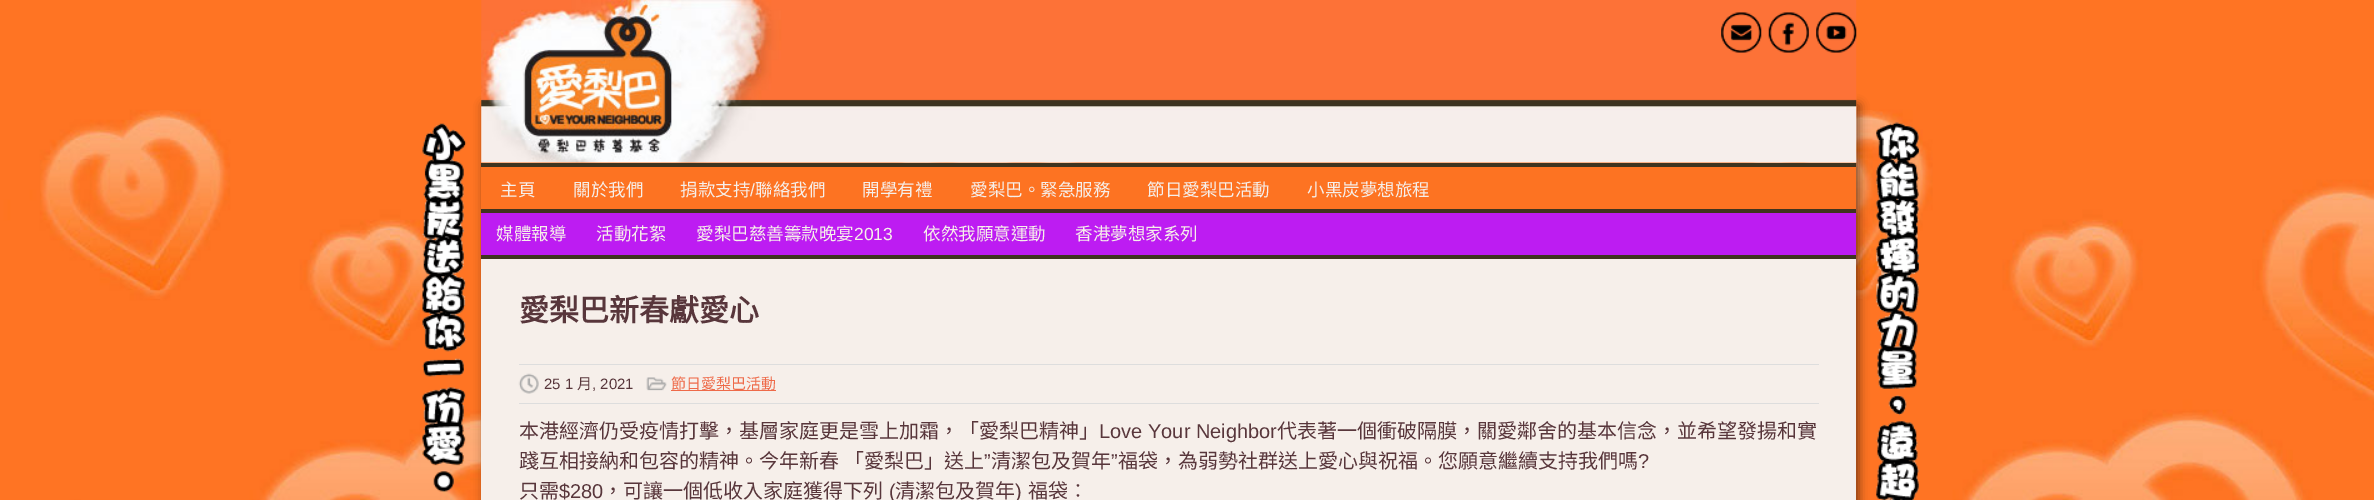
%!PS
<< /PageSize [2374 500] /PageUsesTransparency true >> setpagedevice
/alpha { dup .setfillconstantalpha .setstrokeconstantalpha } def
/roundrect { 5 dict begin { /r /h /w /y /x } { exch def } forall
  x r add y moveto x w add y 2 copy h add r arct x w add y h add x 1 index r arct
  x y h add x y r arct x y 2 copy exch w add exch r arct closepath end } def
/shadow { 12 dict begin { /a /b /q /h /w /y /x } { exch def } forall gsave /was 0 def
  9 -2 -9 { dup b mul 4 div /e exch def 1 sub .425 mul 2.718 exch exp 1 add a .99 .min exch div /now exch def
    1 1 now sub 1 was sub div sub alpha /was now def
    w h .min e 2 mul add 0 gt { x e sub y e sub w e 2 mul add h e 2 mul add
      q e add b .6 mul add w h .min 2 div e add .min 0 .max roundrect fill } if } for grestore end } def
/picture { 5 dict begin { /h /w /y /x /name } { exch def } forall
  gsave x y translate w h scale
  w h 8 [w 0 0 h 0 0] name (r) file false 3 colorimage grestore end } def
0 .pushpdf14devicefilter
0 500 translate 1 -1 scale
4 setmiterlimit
1 setgray
0 0 2374 500 rectfill
(img1.rgb) 0 0 2374 500 picture
(img2.rgb) 422 123 45 369 picture
0 setgray
484 105 1375 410 0 5 0.5 shadow
(img3.rgb) 481 0 1376 163 picture
(img4.rgb) 1721 12 41 41 picture
(img5.rgb) 1768 12 41 41 picture
(img6.rgb) 1816 12 41 41 picture
0.992 0.451 0.133 setrgbcolor
481 167 1375 42 rectfill
0.247 0.204 0.122 setrgbcolor
481 163 1375 4 rectfill
481 209 1375 4 rectfill
/NotoSansCJKTC-Regular [17.5 0 0 -17.5 0 0] selectfont
0.965 0.937 0.918 setrgbcolor
500 196 moveto (主頁) show
573 196 moveto (關於我們) show
680 196 moveto (捐款支持) show
/LiberationSans-Regular [17.5 0 0 -17.5 0 0] selectfont
750 196 moveto (/) show
/NotoSansCJKTC-Regular [17.5 0 0 -17.5 0 0] selectfont
755 196 moveto (聯絡我們) show
862 196 moveto (開學有禮) show
970 196 moveto (愛梨巴。緊急服務) show
1147 196 moveto (節日愛梨巴活動) show
1307 196 moveto (小黑炭夢想旅程) show
0.741 0.11 0.949 setrgbcolor
481 213 1375 42 rectfill
0.247 0.204 0.122 setrgbcolor
481 255 1375 4 rectfill
0.965 0.937 0.918 setrgbcolor
496 240 moveto (媒體報導) show
596 240 moveto (活動花絮) show
696 240 moveto (愛梨巴慈善籌款晚宴) show
/LiberationSans-Regular [17.5 0 0 -17.5 0 0] selectfont
854 240 moveto (2013) show
/NotoSansCJKTC-Regular [17.5 0 0 -17.5 0 0] selectfont
923 240 moveto (依然我願意運動) show
1075 240 moveto (香港夢想家系列) show
481 259 1375 241 rectfill
/NotoSansCJKTC-Bold [30 0 0 -30 0 0] selectfont
0.345 0.212 0.231 setrgbcolor
519 321 moveto (愛梨巴新春獻愛心) show
0.867 setgray
519 364 1300 1 rectfill
519 403 1300 1 rectfill
(img7.rgb) 518 373 21 21 picture
/LiberationSans-Regular [15 0 0 -15 0 0] selectfont
0.345 0.212 0.231 setrgbcolor
544 389 moveto (25 1) show
/NotoSansCJKTC-Regular [15 0 0 -15 0 0] selectfont
577 389 moveto (月) show
/LiberationSans-Regular [15 0 0 -15 0 0] selectfont
592 389 moveto (, 2021) show
(img8.rgb) 646 377 21 14 picture
0.933 0.416 0.286 setrgbcolor
671 390 105 1 rectfill
/NotoSansCJKTC-Regular [15 0 0 -15 0 0] selectfont
671 389 moveto (節日愛梨巴活動) show
/NotoSansCJKTC-Regular [20 0 0 -20 0 0] selectfont
0.345 0.212 0.231 setrgbcolor
519 438 moveto (本港經濟仍受疫情打擊，基層家庭更是雪上加霜，「愛梨巴精神」) show
/LiberationSans-Regular [20 0 0 -20 0 0] selectfont
1099 438 moveto (Love Your Neighbor) show
/NotoSansCJKTC-Regular [20 0 0 -20 0 0] selectfont
1277 438 moveto (代表著一個衝破隔膜，關愛鄰舍的基本信念，並希望發揚和實) show
519 468 moveto 1 0 32 (踐互相接納和包容的精神。今年新春 「愛梨巴」送上) widthshow
/LiberationSans-Regular [20 0 0 -20 0 0] selectfont
984 468 moveto (”) show
/NotoSansCJKTC-Regular [20 0 0 -20 0 0] selectfont
991 468 moveto (清潔包及賀年) show
/LiberationSans-Regular [20 0 0 -20 0 0] selectfont
1111 468 moveto (”) show
/NotoSansCJKTC-Regular [20 0 0 -20 0 0] selectfont
1118 468 moveto (福袋，為弱勢社群送上愛心與祝福。您願意繼續支持我們嗎) show
/LiberationSans-Regular [20 0 0 -20 0 0] selectfont
1638 468 moveto (?) show
/NotoSansCJKTC-Regular [20 0 0 -20 0 0] selectfont
519 498 moveto (只需) show
/LiberationSans-Regular [20 0 0 -20 0 0] selectfont
559 498 moveto ($280) show
/NotoSansCJKTC-Regular [20 0 0 -20 0 0] selectfont
603 498 moveto (，可讓一個低收入家庭獲得下列) show
/LiberationSans-Regular [20 0 0 -20 0 0] selectfont
889 498 moveto (\() show
/NotoSansCJKTC-Regular [20 0 0 -20 0 0] selectfont
895 498 moveto (清潔包及賀年) show
/LiberationSans-Regular [20 0 0 -20 0 0] selectfont
1015 498 moveto (\)) show
/NotoSansCJKTC-Regular [20 0 0 -20 0 0] selectfont
1028 498 moveto (福袋︰) show
(img9.rgb) 1876 122 44 378 picture
.poppdf14devicefilter showpage
